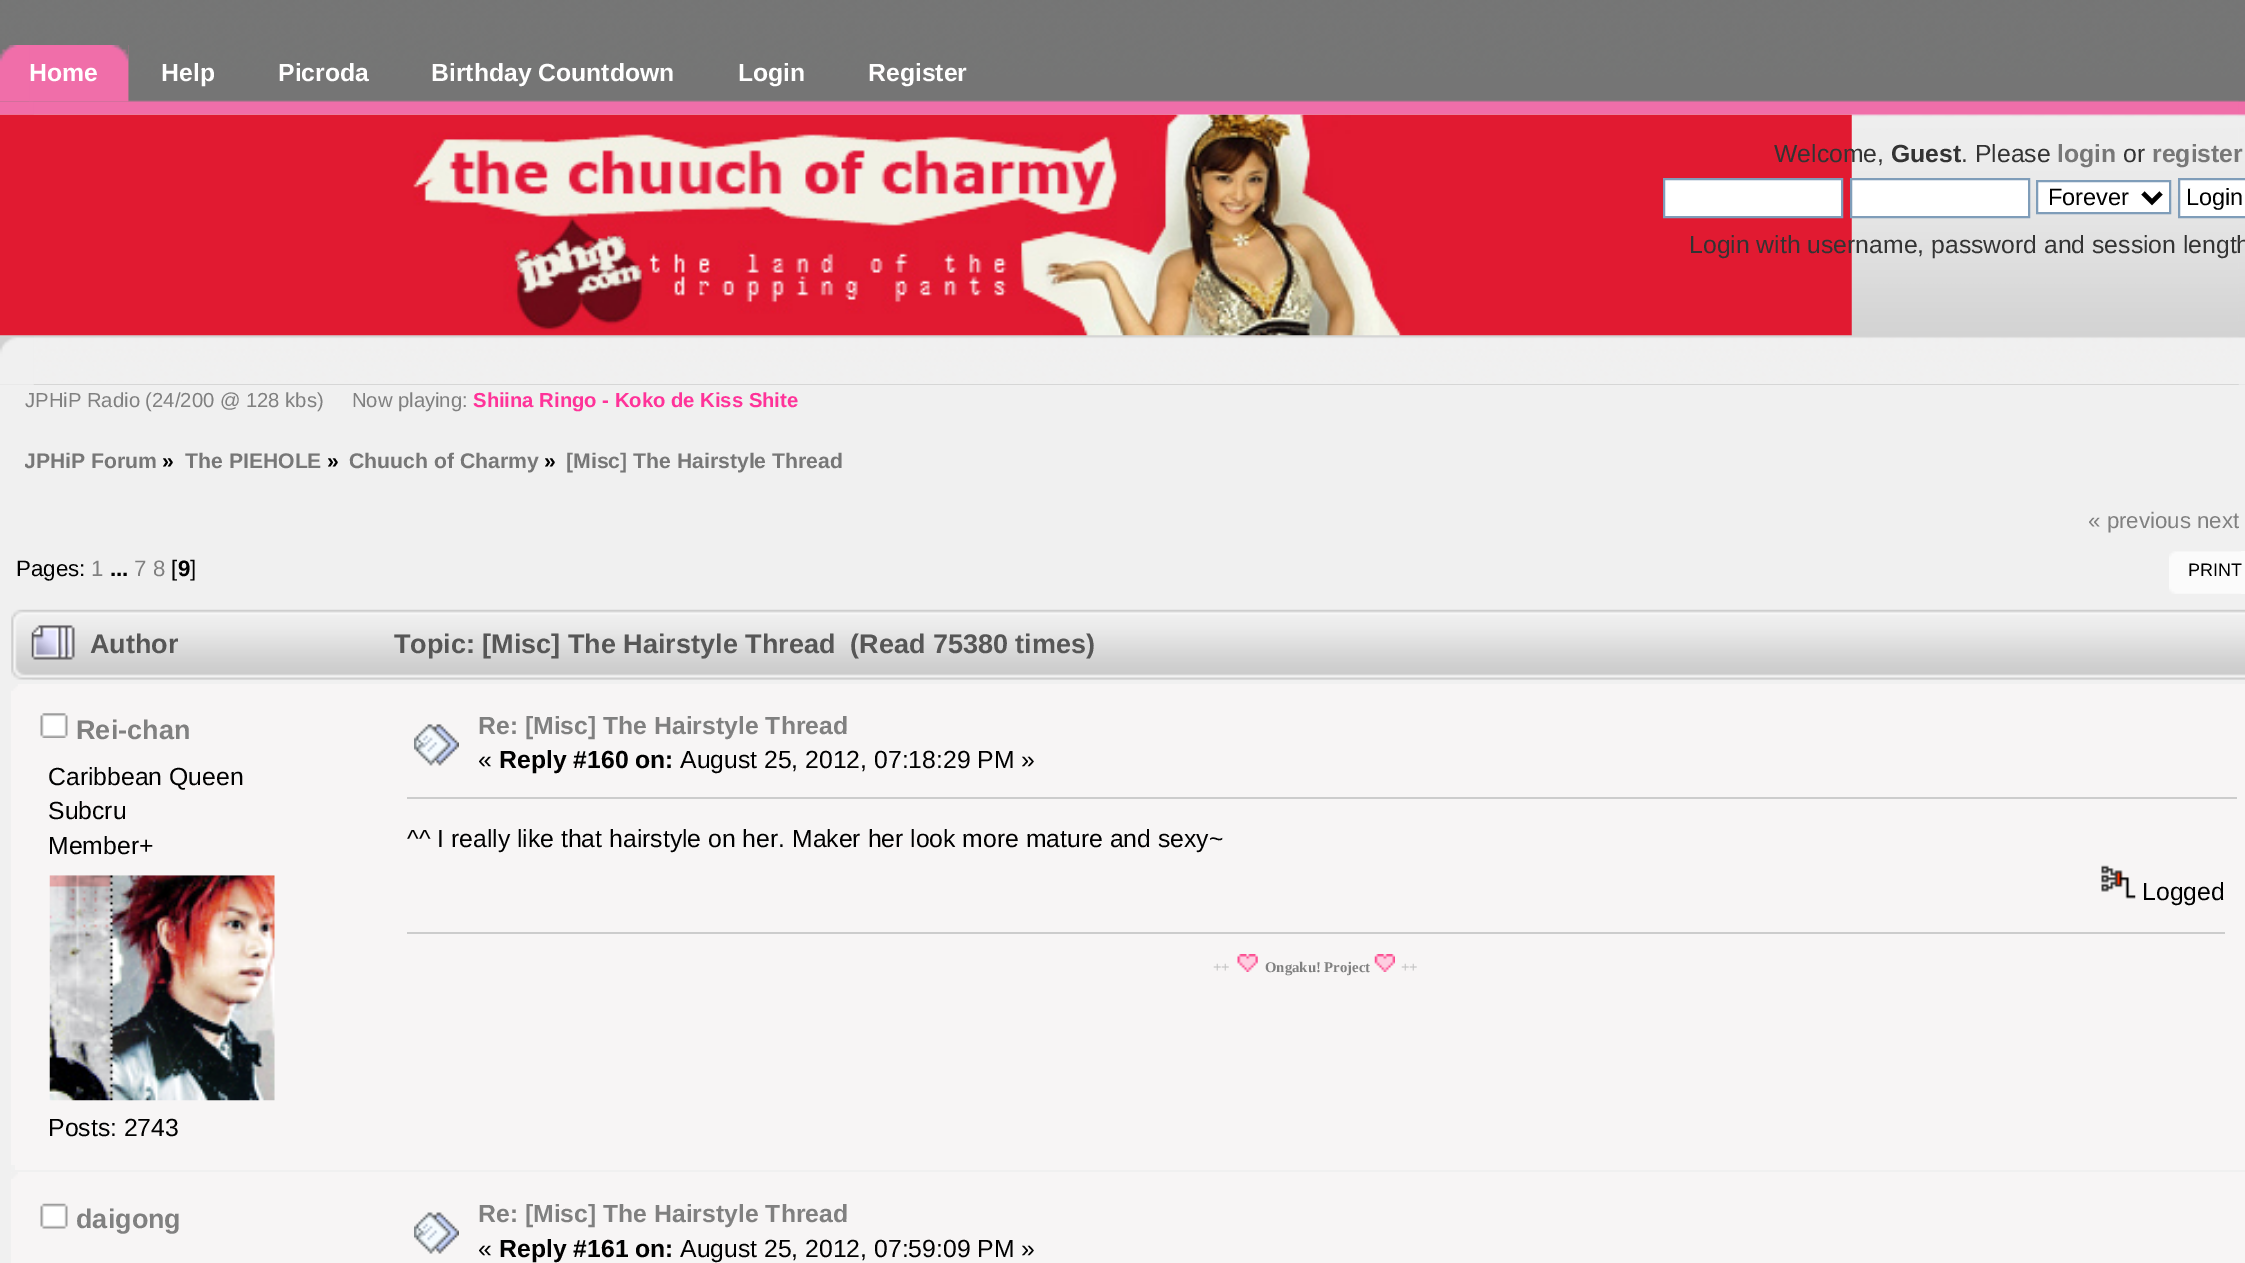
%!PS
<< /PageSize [2245 1263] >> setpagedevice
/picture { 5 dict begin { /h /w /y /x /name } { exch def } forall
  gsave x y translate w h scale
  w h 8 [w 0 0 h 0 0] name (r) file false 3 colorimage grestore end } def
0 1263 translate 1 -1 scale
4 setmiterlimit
1 setgray
0 0 2245 1263 rectfill
(img1.rgb) 0 384 2245 1 picture
(img2.rgb) 0 0 2245 385 picture
(img3.rgb) 0 101 34 284 picture
(img4.rgb) 2238 100 7 285 picture
(img5.rgb) 0 45 129 57 picture
(img6.rgb) 29 45 100 57 picture
/LiberationSans-Bold [24.75 0 0 -24.75 0 0] selectfont
29 81 moveto (Home) show
161 81 moveto (Help) show
278 81 moveto (Picroda) show
431 81 moveto (Birthday Countdown) show
738 81 moveto (Login) show
868 81 moveto (Register) show
(img7.rgb) 0 114 1852 222 picture
/LiberationSans-Regular [24.75 0 0 -24.75 0 0] selectfont
0.2 setgray
1774 162 moveto (Welcome,) show
/LiberationSans-Bold [24.75 0 0 -24.75 0 0] selectfont
1891 162 moveto (Guest) show
/LiberationSans-Regular [24.75 0 0 -24.75 0 0] selectfont
1961 162 moveto (. Please) show
/LiberationSans-Bold [24.75 0 0 -24.75 0 0] selectfont
0.467 setgray
2057 162 moveto (login) show
/LiberationSans-Regular [24.75 0 0 -24.75 0 0] selectfont
0.2 setgray
2123 162 moveto (or) show
/LiberationSans-Bold [24.75 0 0 -24.75 0 0] selectfont
0.467 setgray
2152 162 moveto (register) show
1 setgray
newpath 1664 179 moveto 1842 179 lineto 1842 217 lineto 1664 217 lineto closepath gsave fill grestore
0.498 0.616 0.725 setrgbcolor
2 setlinewidth
stroke
1 setgray
newpath 1851 179 moveto 2029 179 lineto 2029 217 lineto 1851 217 lineto closepath gsave fill grestore
0.498 0.616 0.725 setrgbcolor
stroke
1 setgray
newpath 2037 181 moveto 2170 181 lineto 2170 213 lineto 2037 213 lineto closepath gsave fill grestore
0.498 0.616 0.725 setrgbcolor
stroke
0 setgray
4.5 setlinewidth
newpath 2143 193 moveto 2152 202 lineto 2161 193 lineto stroke
/LiberationSans-Regular [23.5 0 0 -23.5 0 0] selectfont
2048 205 moveto (Forever) show
1 setgray
newpath 2179 179 moveto 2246 179 lineto 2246 217 lineto 2179 217 lineto closepath gsave fill grestore
0.498 0.616 0.725 setrgbcolor
2 setlinewidth
stroke
0 setgray
2186 205 moveto (Login) show
/LiberationSans-Regular [24.75 0 0 -24.75 0 0] selectfont
0.2 setgray
1689 253 moveto (Login with username, password and session length) show
0.941 setgray
0 385 2245 878 rectfill
/LiberationSans-Regular [20.25 0 0 -20.25 0 0] selectfont
0.502 setgray
25 407 moveto (JPHiP Radio \(24/200 @ 128 kbs\)     Now playing:) show
/LiberationSans-Bold [20.25 0 0 -20.25 0 0] selectfont
1 0.2 0.6 setrgbcolor
473 407 moveto (Shiina Ringo - Koko de Kiss Shite) show
gsave
25 432 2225 56 rectclip
/LiberationSans-Bold [21.2 0 0 -21.2 0 0] selectfont
0.467 setgray
24 468 moveto (JPHiP Forum) show
grestore
/LiberationSans-Bold [21.2 0 0 -21.2 0 0] selectfont
0 setgray
162 468 moveto (») show
0.467 setgray
185 468 moveto (The PIEHOLE) show
0 setgray
327 468 moveto (») show
0.467 setgray
349 468 moveto (Chuuch of Charmy) show
0 setgray
544 468 moveto (») show
0.467 setgray
566 468 moveto ([Misc] The Hairstyle Thread) show
/LiberationSans-Regular [22.25 0 0 -22.25 0 0] selectfont
0.502 setgray
2088 528 moveto (« previous next) show
0 setgray
16 576 moveto (Pages:) show
0.502 setgray
91 576 moveto (1) show
/LiberationSans-Bold [22.25 0 0 -22.25 0 0] selectfont
0 setgray
110 576 moveto (...) show
/LiberationSans-Regular [22.25 0 0 -22.25 0 0] selectfont
0.502 setgray
134 576 moveto (7 8) show
0 setgray
171 576 moveto ([) show
/LiberationSans-Bold [22.25 0 0 -22.25 0 0] selectfont
178 576 moveto (9) show
/LiberationSans-Regular [22.25 0 0 -22.25 0 0] selectfont
190 576 moveto (]) show
(img8.rgb) 2169 551 72 43 picture
0.984 setgray
2241 551 4 43 rectfill
/LiberationSans-Regular [18 0 0 -18 0 0] selectfont
0 setgray
2188 576 moveto (PRINT) show
(img9.rgb) 11 609 2234 71 picture
0.855 setgray
32 679 2213 1 rectfill
(img10.rgb) 31 625 44 35 picture
/LiberationSans-Bold [27 0 0 -27 0 0] selectfont
0.337 setgray
90 653 moveto (Author) show
394 653 moveto (Topic: [Misc] The Hairstyle Thread  \(Read 75380 times\)) show
0.969 0.961 0.961 setrgbcolor
11 684 2234 486 rectfill
(img11.rgb) 11 684 7 7 picture
(img12.rgb) 40 713 28 25 picture
0.502 setgray
76 739 moveto (Rei-chan) show
/LiberationSans-Regular [24.75 0 0 -24.75 0 0] selectfont
0 setgray
48 785 moveto (Caribbean Queen) show
48 819 moveto (Subcru) show
48 854 moveto (Member+) show
(img13.rgb) 49 875 226 226 picture
48 1136 moveto (Posts: 2743) show
(img14.rgb) 414 724 45 42 picture
/LiberationSans-Bold [24.75 0 0 -24.75 0 0] selectfont
0.502 setgray
478 734 moveto (Re: [Misc] The Hairstyle Thread) show
/LiberationSans-Regular [24.75 0 0 -24.75 0 0] selectfont
0 setgray
478 768 moveto («) show
/LiberationSans-Bold [24.75 0 0 -24.75 0 0] selectfont
499 768 moveto (Reply #160 on:) show
/LiberationSans-Regular [24.75 0 0 -24.75 0 0] selectfont
680 768 moveto (August 25, 2012, 07:18:29 PM ») show
0.8 setgray
407 797 1830 2 rectfill
0 setgray
407 847 moveto (^^ I really like that hairstyle on her. Maker her look more mature and sexy~) show
(img15.rgb) 2101 865 35 34 picture
2142 900 moveto (Logged) show
0.8 setgray
407 932 1818 2 rectfill
/LiberationSerif-Bold [14.75 0 0 -14.75 0 0] selectfont
0.753 setgray
1213 972 moveto (++) show
(img16.rgb) 1237 954 21 18 picture
0.502 setgray
1265 972 moveto (Ongaku! Project) show
(img17.rgb) 1374 954 21 18 picture
0.753 setgray
1401 972 moveto (++) show
0.945 setgray
11 1165 4 5 rectfill
0.969 0.961 0.961 setrgbcolor
11 1172 2234 91 rectfill
(img18.rgb) 11 1172 7 7 picture
(img19.rgb) 40 1203 28 26 picture
/LiberationSans-Bold [27 0 0 -27 0 0] selectfont
0.502 setgray
76 1228 moveto (daigong) show
(img20.rgb) 414 1212 45 42 picture
/LiberationSans-Bold [24.75 0 0 -24.75 0 0] selectfont
478 1222 moveto (Re: [Misc] The Hairstyle Thread) show
/LiberationSans-Regular [24.75 0 0 -24.75 0 0] selectfont
0 setgray
478 1257 moveto («) show
/LiberationSans-Bold [24.75 0 0 -24.75 0 0] selectfont
499 1257 moveto (Reply #161 on:) show
/LiberationSans-Regular [24.75 0 0 -24.75 0 0] selectfont
680 1257 moveto (August 25, 2012, 07:59:09 PM ») show
showpage
